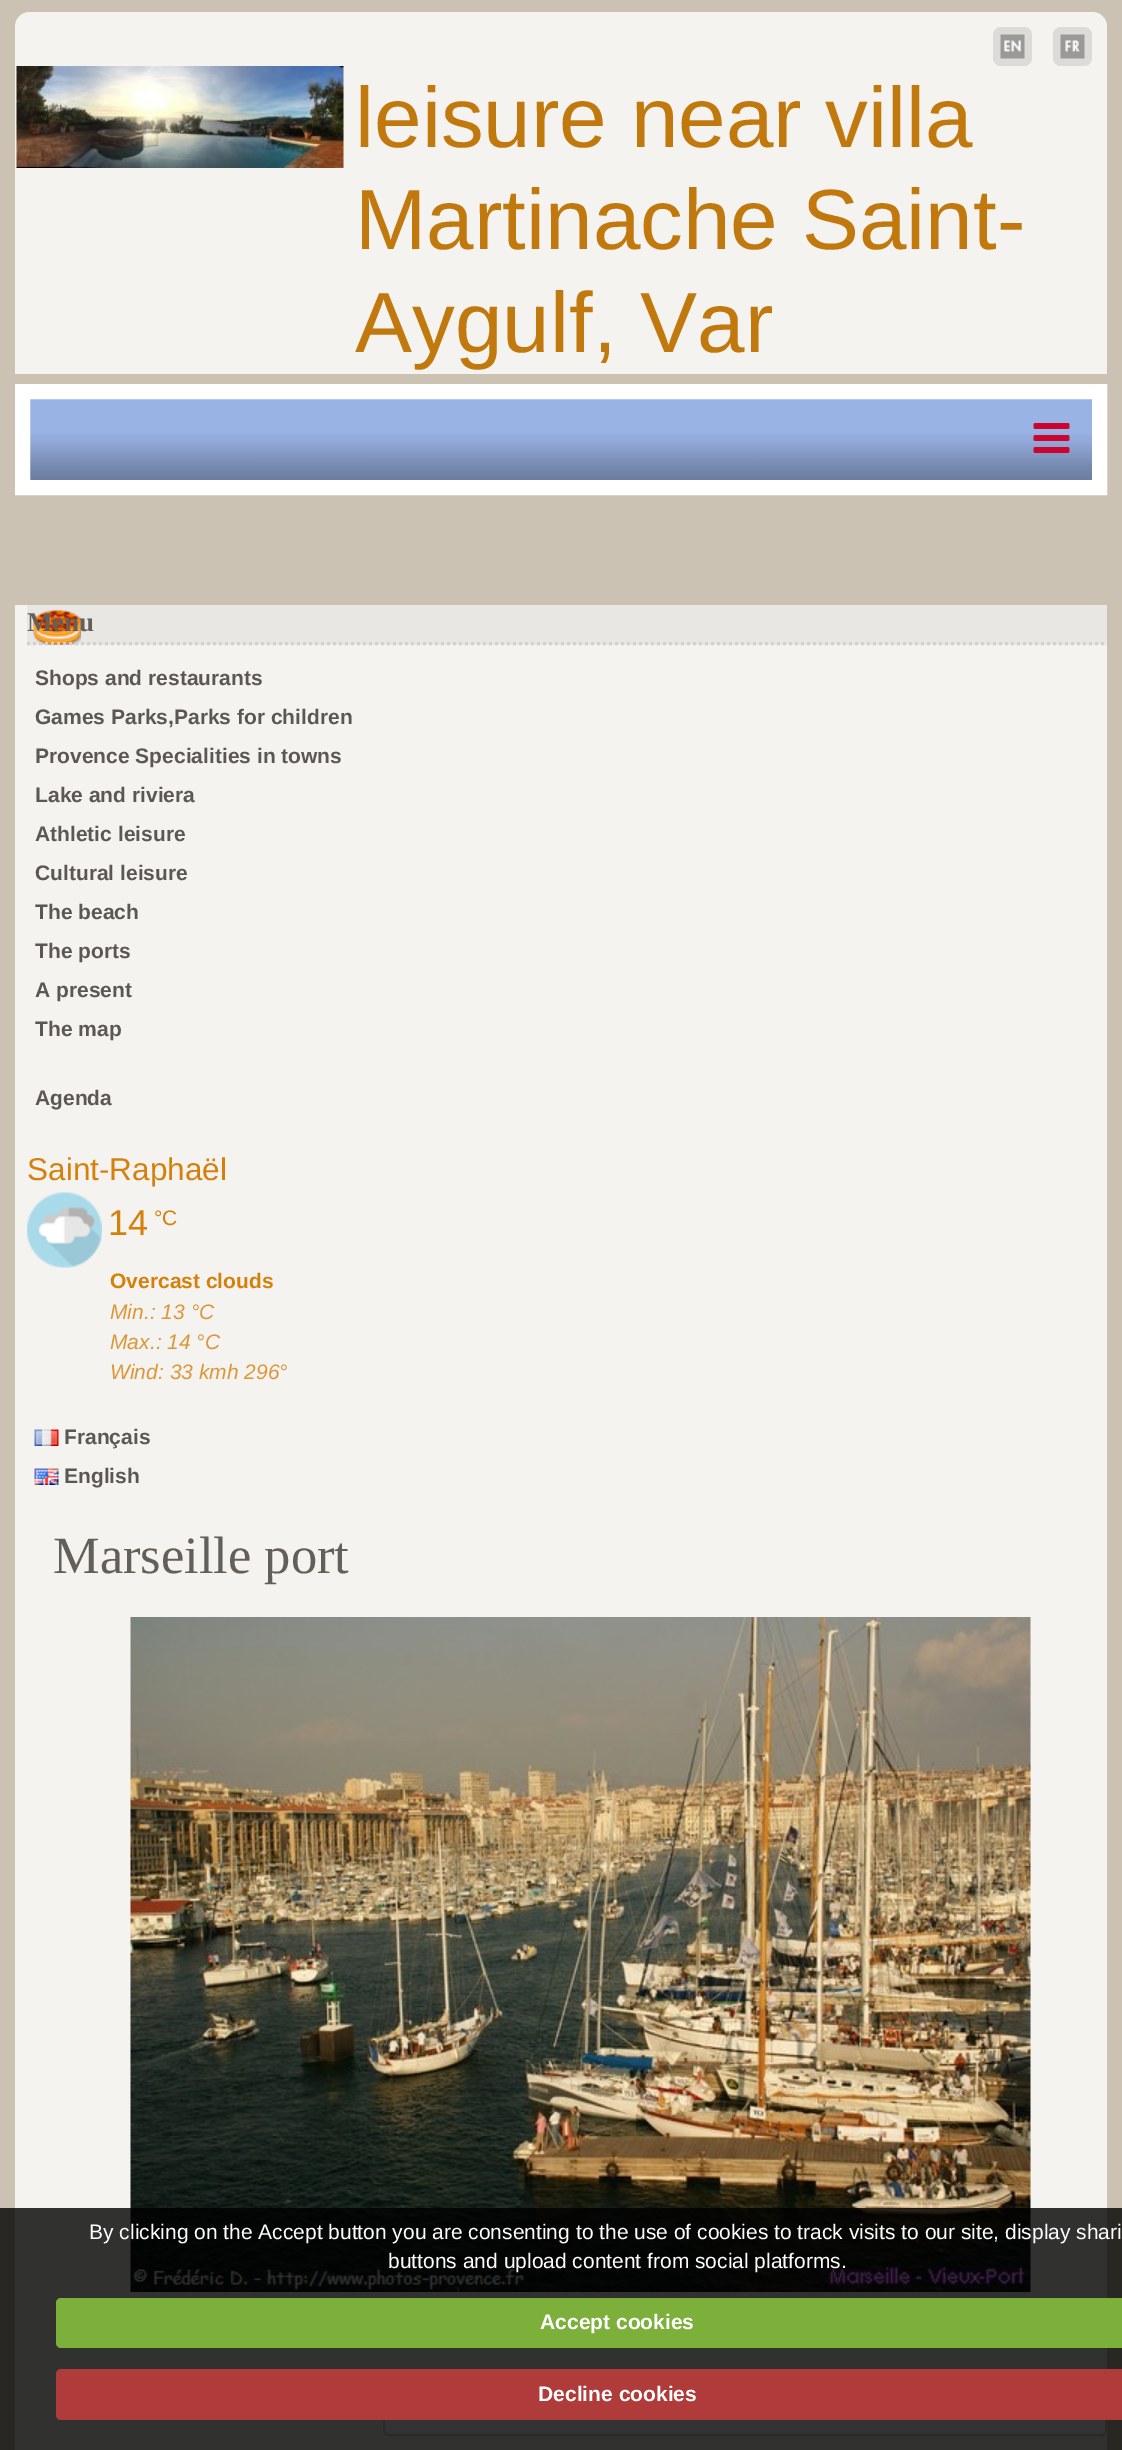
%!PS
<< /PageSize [1122 2450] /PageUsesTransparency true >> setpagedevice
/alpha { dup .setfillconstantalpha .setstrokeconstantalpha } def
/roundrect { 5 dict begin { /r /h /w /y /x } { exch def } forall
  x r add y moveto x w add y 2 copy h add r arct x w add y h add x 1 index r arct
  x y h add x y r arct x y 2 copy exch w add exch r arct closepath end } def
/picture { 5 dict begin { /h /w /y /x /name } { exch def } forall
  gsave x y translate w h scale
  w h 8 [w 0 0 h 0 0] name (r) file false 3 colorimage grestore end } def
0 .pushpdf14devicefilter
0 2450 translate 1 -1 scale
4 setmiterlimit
0.796 0.761 0.702 setrgbcolor
0 0 1122 2450 rectfill
0.957 0.953 0.941 setrgbcolor
newpath 30 12 moveto 1092 12 lineto 1100.5 12 1107 18.5 1107 27 curveto 1107 374 lineto 15 374 lineto 15 27 lineto 15 18.5 21.5 12 30 12 curveto closepath fill
0.863 0.859 0.847 setrgbcolor
993 27 39 39 8 roundrect fill
(img1.rgb) 1000 34 25 25 picture
1053 27 39 39 8 roundrect fill
(img2.rgb) 1060 34 25 25 picture
(img3.rgb) 16 66 328 102 picture
/LiberationSans-Regular [85.5 0 0 -85.5 0 0] selectfont
0.757 0.471 0.047 setrgbcolor
355 147 moveto (leisure near villa) show
355 249 moveto (Martinache Saint-) show
355 352 moveto (Aygulf, Var) show
0.604 0.702 0.898 setrgbcolor
30 399 1062 81 rectfill
(img4.rgb) 30 434 1062 46 picture
1 setgray
15 setlinewidth
22.5 391.5 1077 96 rectstroke
(img5.rgb) 1033 423 37 30 picture
0.957 0.953 0.941 setrgbcolor
15 605 1092 1845 rectfill
0.91 0.906 0.894 setrgbcolor
27 605 1080 40 rectfill
(img6.rgb) 33 610 48 35 picture
0.831 0.82 0.804 setrgbcolor
3 setlinewidth
[3 3] 0 setdash
newpath 27 643.5 moveto 1107 643.5 lineto stroke
/LiberationSerif-Bold [27 0 0 -27 0 0] selectfont
0.392 0.373 0.345 setrgbcolor
27 631 moveto (Menu) show
/LiberationSans-Bold [21 0 0 -21 0 0] selectfont
0.353 0.341 0.333 setrgbcolor
35 685 moveto (Shops and restaurants) show
35 724 moveto (Games Parks,Parks for children) show
35 763 moveto (Provence Specialities in towns) show
35 802 moveto (Lake and riviera) show
35 841 moveto (Athletic leisure) show
35 880 moveto (Cultural leisure) show
35 919 moveto (The beach) show
35 958 moveto (The ports) show
35 997 moveto (A present) show
35 1036 moveto (The map) show
35 1105 moveto (Agenda) show
/LiberationSans-Regular [31.5 0 0 -31.5 0 0] selectfont
0.835 0.502 0.043 setrgbcolor
27 1180 moveto (Saint-Raphaël) show
(img7.rgb) 27 1192 75 76 picture
/LiberationSans-Regular [36 0 0 -36 0 0] selectfont
108 1235 moveto (14) show
/LiberationSans-Regular [21 0 0 -21 0 0] selectfont
154 1225 moveto (°C) show
/LiberationSans-Bold [21 0 0 -21 0 0] selectfont
110 1288 moveto (Overcast clouds) show
/LiberationSans-Italic [21 0 0 -21 0 0] selectfont
0.859 0.592 0.224 setrgbcolor
110 1319 moveto (Min.: 13 °C) show
110 1349 moveto (Max.: 14 °C) show
110 1379 moveto (Wind: 33 kmh 296°) show
(img8.rgb) 34 1429 25 17 picture
/LiberationSans-Bold [21 0 0 -21 0 0] selectfont
0.353 0.341 0.333 setrgbcolor
64 1444 moveto (Français) show
(img9.rgb) 34 1468 25 17 picture
64 1483 moveto (English) show
/LiberationSerif-Regular [52.5 0 0 -52.5 0 0] selectfont
0.392 0.373 0.345 setrgbcolor
53 1573 moveto (Marseille port) show
(img10.rgb) 130 1617 901 675 picture
1 setgray
384 2392 722 43 5 roundrect gsave fill grestore
0.831 0.82 0.804 setrgbcolor
2 setlinewidth
[] 0 setdash
stroke
0.8 alpha
0 setgray
0 2208 1122 242 rectfill
/LiberationSans-Regular [21 0 0 -21 0 0] selectfont
1 alpha
1 setgray
89 2239 moveto (By clicking on the Accept button you are consenting to the use of cookies to track visits to our site, display shari) show
388 2268 moveto (buttons and upload content from social platforms.) show
0.49 0.686 0.231 setrgbcolor
56 2298 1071 50 5 roundrect fill
/LiberationSans-Bold [21 0 0 -21 0 0] selectfont
1 setgray
540 2329 moveto (Accept cookies) show
0.686 0.231 0.231 setrgbcolor
56 2369 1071 51 5 roundrect fill
1 setgray
538 2401 moveto (Decline cookies) show
.poppdf14devicefilter showpage
